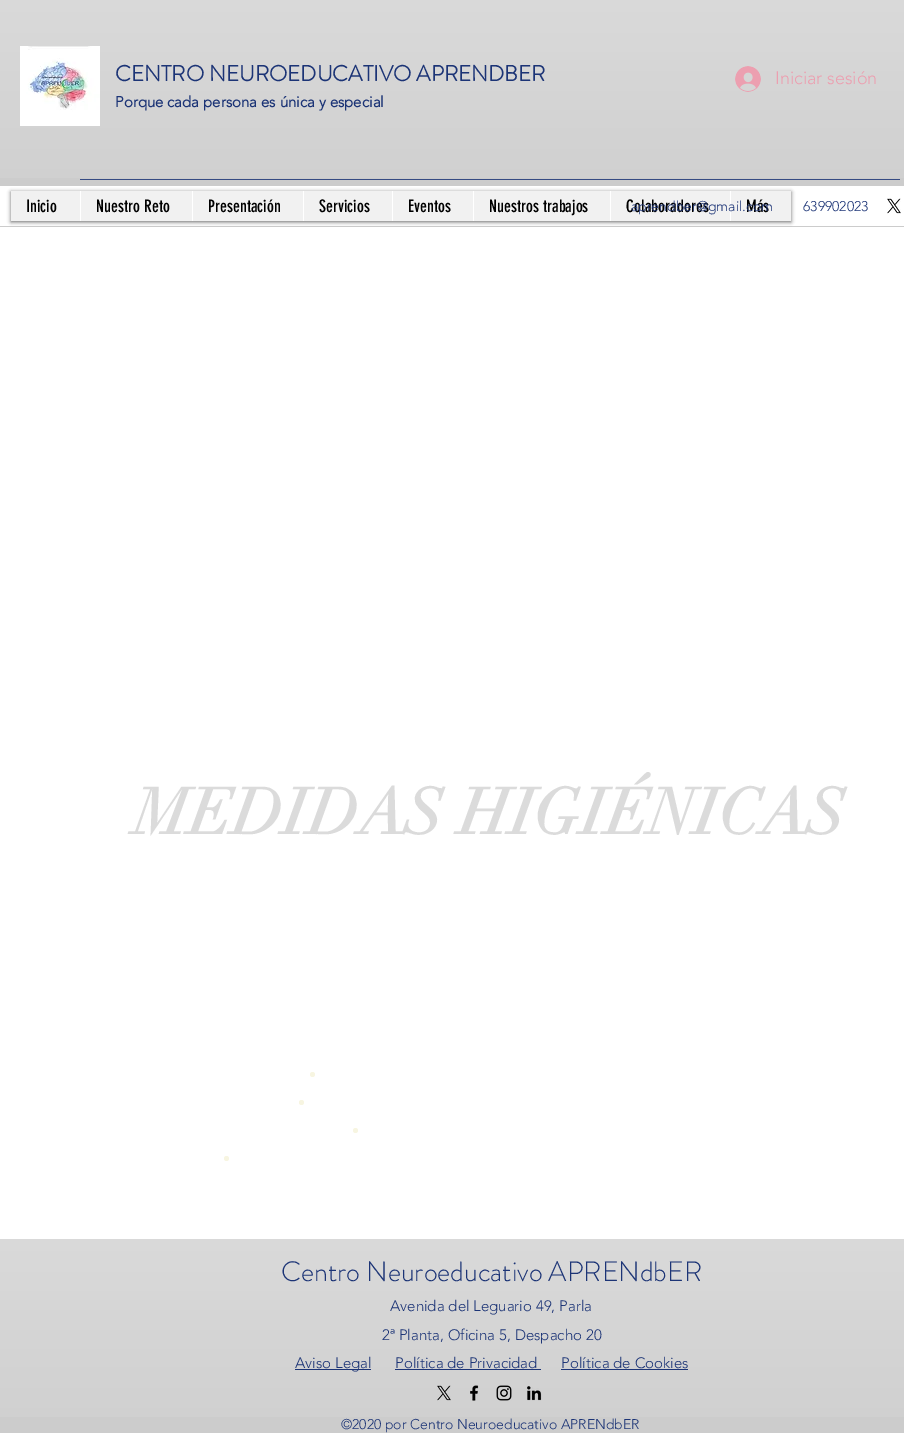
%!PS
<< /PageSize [904 1433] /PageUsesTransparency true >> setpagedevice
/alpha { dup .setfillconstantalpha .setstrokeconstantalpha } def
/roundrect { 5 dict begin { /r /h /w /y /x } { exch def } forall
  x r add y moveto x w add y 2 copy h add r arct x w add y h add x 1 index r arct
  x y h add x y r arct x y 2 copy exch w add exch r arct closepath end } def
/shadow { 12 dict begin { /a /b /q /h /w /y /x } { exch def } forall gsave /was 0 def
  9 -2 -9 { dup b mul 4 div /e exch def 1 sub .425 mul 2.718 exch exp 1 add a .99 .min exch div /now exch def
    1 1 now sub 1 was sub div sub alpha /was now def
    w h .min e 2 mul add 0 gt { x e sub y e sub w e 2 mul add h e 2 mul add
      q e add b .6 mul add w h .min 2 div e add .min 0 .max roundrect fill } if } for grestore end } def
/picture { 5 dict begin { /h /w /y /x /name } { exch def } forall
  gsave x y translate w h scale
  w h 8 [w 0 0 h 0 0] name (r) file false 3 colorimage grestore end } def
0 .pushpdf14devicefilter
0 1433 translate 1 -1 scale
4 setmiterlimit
1 setgray
0 0 904 1433 rectfill
0.8 setgray
0 0 904 227 rectfill
(img1.rgb) 0 0 904 178 picture
(img2.rgb) 20 46 80 80 picture
/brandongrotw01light-Bold [22 0 0 -22 0 0] selectfont
0.11 0.204 0.463 setrgbcolor
115 81 moveto (CENTRO NEUROEDUCATIVO APRENDBER) show
/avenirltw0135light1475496-Bold [15 0 0 -15 0 0] selectfont
115 107 moveto (Porque cada persona es única y especial) show
(img3.rgb) 735 66 26 26 picture
/avenirltw0135light1475496-Light [18 0 0 -18 0 0] selectfont
0.925 0.624 0.69 setrgbcolor
775 84 moveto (Iniciar sesión) show
0.212 0.294 0.514 setrgbcolor
80 179 820 1 rectfill
1 setgray
0 186 904 40 rectfill
0 setgray
11 192 780 30 0 2 0.6 shadow
0.945 setgray
11 191 780 30 rectfill
/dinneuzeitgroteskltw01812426-Regular [17 0 0 -17 0 0] selectfont
0 setgray
26 212 moveto (Inicio) show
1 setgray
80 191 1 30 rectfill
0 setgray
96 212 moveto (Nuestro Reto) show
1 setgray
192 191 1 30 rectfill
0 setgray
208 212 moveto (Presentación) show
1 setgray
303 191 1 30 rectfill
0 setgray
319 212 moveto (Servicios) show
1 setgray
392 191 1 30 rectfill
0 setgray
408 212 moveto (Eventos) show
1 setgray
473 191 1 30 rectfill
0 setgray
489 212 moveto (Nuestros trabajos) show
1 setgray
610 191 1 30 rectfill
0 setgray
626 212 moveto (Colaboradores) show
1 setgray
730 191 1 30 rectfill
0 setgray
746 212 moveto (Más) show
/avenirltw0135light1475496-Light [14 0 0 -14 0 0] selectfont
0.11 0.204 0.463 setrgbcolor
631 211 moveto (aprendber@gmail.com) show
803 211 moveto (639902023) show
(img4.rgb) 887 198 14 16 picture
/didot-Bold [64 0 0 -64 0 0] selectfont
0.859 setgray
134 834 moveto (MEDIDAS HIGIÉNICAS) show
0.969 0.961 0.882 setrgbcolor
newpath 312.5 1074.5 2.5 0 360 arc closepath fill
newpath 301.5 1102.5 2.5 0 360 arc closepath fill
newpath 355.5 1130.5 2.5 0 360 arc closepath fill
newpath 226.5 1158.5 2.5 0 360 arc closepath fill
0.8 setgray
0 1239 904 194 rectfill
(img1.rgb) 0 1239 904 178 picture
/brandongrotw01light-Light [28 0 0 -28 0 0] selectfont
0.11 0.204 0.463 setrgbcolor
281 1281 moveto (Centro Neuroeducativo APRENdbER) show
/avenirltw0135light1475496-Light [15 0 0 -15 0 0] selectfont
390 1311 moveto (Avenida del Leguario 49, Parla) show
382 1340 moveto (2ª Planta, Oficina 5, Despacho 20) show
295 1369 76 1 rectfill
295 1368 moveto (Aviso Legal) show
395 1368 moveto (Política de Privacidad) show
395 1369 146 1 rectfill
561 1368 moveto (Política de Cookies) show
561 1369 127 1 rectfill
(img5.rgb) 437 1385 14 16 picture
(img6.rgb) 470 1385 9 16 picture
(img7.rgb) 496 1385 16 16 picture
(img8.rgb) 527 1386 15 15 picture
/avenirltw0135light1475496-Light [14 0 0 -14 0 0] selectfont
341 1429 moveto (©2020 por Centro Neuroeducativo APRENdbER) show
.poppdf14devicefilter showpage
